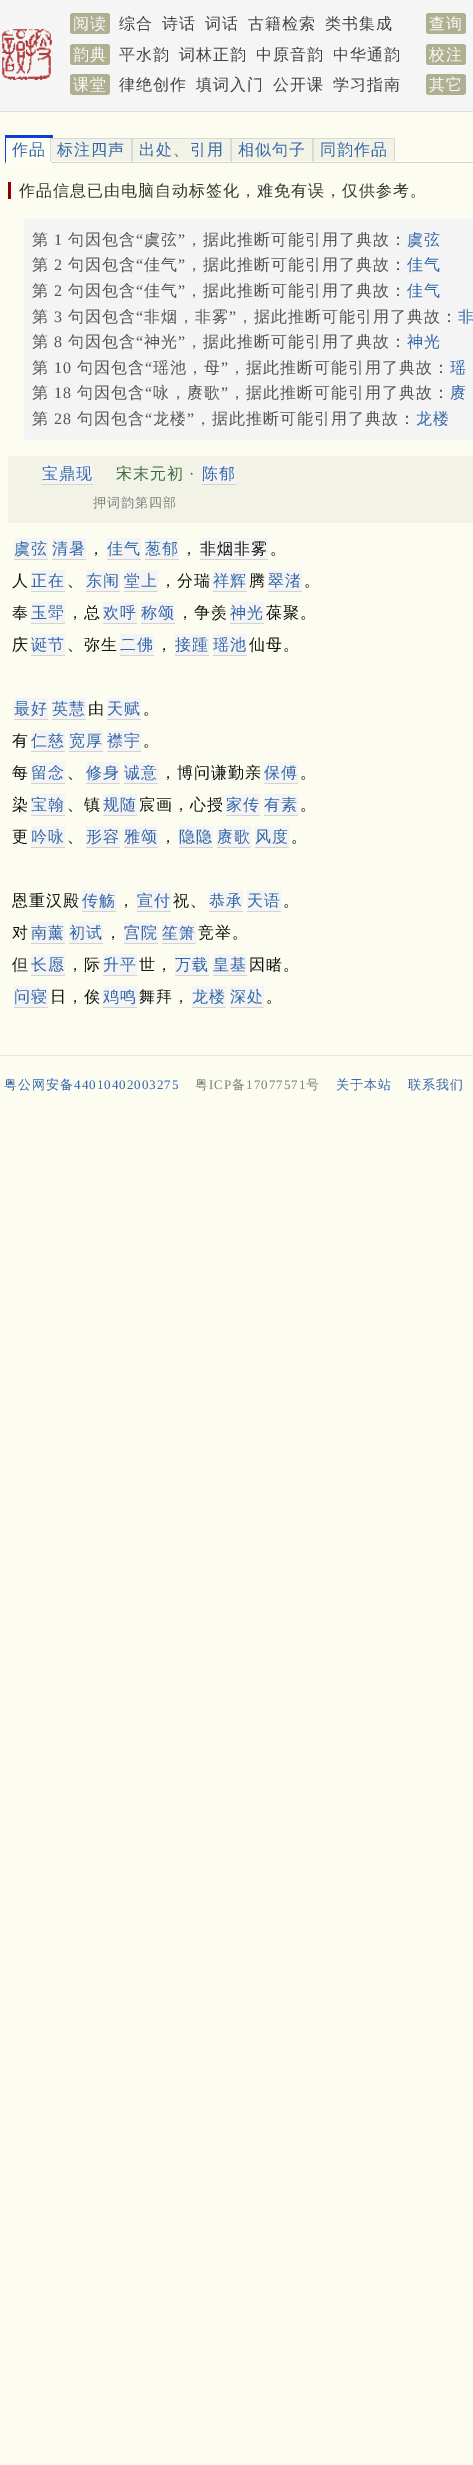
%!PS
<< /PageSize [473 2465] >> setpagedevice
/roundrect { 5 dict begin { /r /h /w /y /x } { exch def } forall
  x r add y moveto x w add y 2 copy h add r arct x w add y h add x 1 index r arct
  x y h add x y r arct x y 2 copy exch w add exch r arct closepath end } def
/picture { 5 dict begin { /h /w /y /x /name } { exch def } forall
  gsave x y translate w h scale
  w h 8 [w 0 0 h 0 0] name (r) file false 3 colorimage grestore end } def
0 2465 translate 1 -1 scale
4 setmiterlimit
0.988 0.988 0.945 setrgbcolor
0 0 473 2465 rectfill
0.961 setgray
0 0 473 111 rectfill
0.867 setgray
0 111 473 1 rectfill
0.686 0.686 0.573 setrgbcolor
70 13 40 21 3 roundrect fill
/WenQuanYiZenHei-Medium [16 0 0 -16 0 0] selectfont
0.984 setgray
73 29 moveto 1 0 (阅读) ashow
0.267 setgray
119 29 moveto 1 0 (综合) ashow
162 29 moveto 1 0 (诗话) ashow
205 29 moveto 1 0 (词话) ashow
248 29 moveto 1 0 (古籍检索) ashow
325 29 moveto 1 0 (类书集成) ashow
0.686 0.686 0.573 setrgbcolor
426 13 40 21 3 roundrect fill
0.984 setgray
429 29 moveto 1 0 (查询) ashow
(img1.rgb) 2 29 50 51 picture
0.686 0.686 0.573 setrgbcolor
70 44 40 21 3 roundrect fill
0.984 setgray
73 60 moveto 1 0 (韵典) ashow
0.267 setgray
119 60 moveto 1 0 (平水韵) ashow
179 60 moveto 1 0 (词林正韵) ashow
256 60 moveto 1 0 (中原音韵) ashow
333 60 moveto 1 0 (中华通韵) ashow
0.686 0.686 0.573 setrgbcolor
426 44 40 21 3 roundrect fill
0.984 setgray
429 60 moveto 1 0 (校注) ashow
0.686 0.686 0.573 setrgbcolor
70 74 40 21 3 roundrect fill
0.984 setgray
73 90 moveto 1 0 (课堂) ashow
0.267 setgray
119 90 moveto 1 0 (律绝创作) ashow
196 90 moveto 1 0 (填词入门) ashow
273 90 moveto 1 0 (公开课) ashow
333 90 moveto 1 0 (学习指南) ashow
0.686 0.686 0.573 setrgbcolor
426 74 40 21 3 roundrect fill
0.984 setgray
429 90 moveto 1 0 (其它) ashow
0.827 setgray
52 162 421 1 rectfill
1 0.996 0.957 setrgbcolor
6 138 44 23 rectfill
0.2 0.4 0.667 setrgbcolor
12 155 moveto 1 0 (作品) ashow
0.035 0.255 0.851 setrgbcolor
5 135 48 3 rectfill
newpath 53 135 moveto 53 164 lineto 52 161 lineto 52 138 lineto closepath fill
0.988 0.988 0.945 setrgbcolor
newpath 53 164 moveto 5 164 lineto 6 161 lineto 52 161 lineto closepath fill
0.035 0.255 0.851 setrgbcolor
newpath 5 164 moveto 5 135 lineto 6 138 lineto 6 161 lineto closepath fill
0.949 0.949 0.906 setrgbcolor
51 139 80 22 rectfill
0.2 0.4 0.667 setrgbcolor
57 155 moveto 1 0 (标注四声) ashow
0.847 setgray
50 138 345 1 rectfill
131 138 2 24 rectfill
0.988 0.988 0.945 setrgbcolor
50 161 82 1 rectfill
0.847 setgray
50 138 1 24 rectfill
0.949 0.949 0.906 setrgbcolor
133 139 97 22 rectfill
0.2 0.4 0.667 setrgbcolor
139 155 moveto 1 0 (出处、引用) ashow
0.847 setgray
230 138 2 24 rectfill
0.988 0.988 0.945 setrgbcolor
230 161 1 1 rectfill
0.949 0.949 0.906 setrgbcolor
232 139 80 22 rectfill
0.2 0.4 0.667 setrgbcolor
238 155 moveto 1 0 (相似句子) ashow
0.847 setgray
312 138 2 24 rectfill
0.988 0.988 0.945 setrgbcolor
312 161 1 1 rectfill
0.949 0.949 0.906 setrgbcolor
314 139 80 22 rectfill
0.2 0.4 0.667 setrgbcolor
320 155 moveto 1 0 (同韵作品) ashow
0.847 setgray
394 138 1 24 rectfill
0.988 0.988 0.945 setrgbcolor
394 161 1 1 rectfill
0.2 setgray
19 196 moveto 1 0 (作品信息已由电脑自动标签化，难免有误，仅供参考。) ashow
0.545 0 0 setrgbcolor
8 182 3 17 rectfill
0.957 setgray
24 219 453 221 4 roundrect fill
0.333 setgray
32 245 moveto 1 0 (第) ashow
/LiberationSerif-Regular [16 0 0 -16 0 0] selectfont
54 245 moveto 1 0 (1) ashow
/WenQuanYiZenHei-Medium [16 0 0 -16 0 0] selectfont
68 245 moveto 1 0 (句因包含) ashow
/LiberationSerif-Regular [16 0 0 -16 0 0] selectfont
136 245 moveto 1 0 (“) ashow
/WenQuanYiZenHei-Medium [16 0 0 -16 0 0] selectfont
144 245 moveto 1 0 (虞弦) ashow
/LiberationSerif-Regular [16 0 0 -16 0 0] selectfont
178 245 moveto 1 0 (”) ashow
/WenQuanYiZenHei-Medium [16 0 0 -16 0 0] selectfont
186 245 moveto 1 0 (，据此推断可能引用了典故：) ashow
0.2 0.4 0.667 setrgbcolor
407 245 moveto 1 0 (虞弦) ashow
0.333 setgray
32 270 moveto 1 0 (第) ashow
/LiberationSerif-Regular [16 0 0 -16 0 0] selectfont
54 270 moveto 1 0 (2) ashow
/WenQuanYiZenHei-Medium [16 0 0 -16 0 0] selectfont
68 270 moveto 1 0 (句因包含) ashow
/LiberationSerif-Regular [16 0 0 -16 0 0] selectfont
136 270 moveto 1 0 (“) ashow
/WenQuanYiZenHei-Medium [16 0 0 -16 0 0] selectfont
144 270 moveto 1 0 (佳气) ashow
/LiberationSerif-Regular [16 0 0 -16 0 0] selectfont
178 270 moveto 1 0 (”) ashow
/WenQuanYiZenHei-Medium [16 0 0 -16 0 0] selectfont
186 270 moveto 1 0 (，据此推断可能引用了典故：) ashow
0.2 0.4 0.667 setrgbcolor
407 270 moveto 1 0 (佳气) ashow
0.333 setgray
32 296 moveto 1 0 (第) ashow
/LiberationSerif-Regular [16 0 0 -16 0 0] selectfont
54 296 moveto 1 0 (2) ashow
/WenQuanYiZenHei-Medium [16 0 0 -16 0 0] selectfont
68 296 moveto 1 0 (句因包含) ashow
/LiberationSerif-Regular [16 0 0 -16 0 0] selectfont
136 296 moveto 1 0 (“) ashow
/WenQuanYiZenHei-Medium [16 0 0 -16 0 0] selectfont
144 296 moveto 1 0 (佳气) ashow
/LiberationSerif-Regular [16 0 0 -16 0 0] selectfont
178 296 moveto 1 0 (”) ashow
/WenQuanYiZenHei-Medium [16 0 0 -16 0 0] selectfont
186 296 moveto 1 0 (，据此推断可能引用了典故：) ashow
0.2 0.4 0.667 setrgbcolor
407 296 moveto 1 0 (佳气) ashow
0.333 setgray
32 322 moveto 1 0 (第) ashow
/LiberationSerif-Regular [16 0 0 -16 0 0] selectfont
54 322 moveto 1 0 (3) ashow
/WenQuanYiZenHei-Medium [16 0 0 -16 0 0] selectfont
68 322 moveto 1 0 (句因包含) ashow
/LiberationSerif-Regular [16 0 0 -16 0 0] selectfont
136 322 moveto 1 0 (“) ashow
/WenQuanYiZenHei-Medium [16 0 0 -16 0 0] selectfont
144 322 moveto 1 0 (非烟，非雾) ashow
/LiberationSerif-Regular [16 0 0 -16 0 0] selectfont
229 322 moveto 1 0 (”) ashow
/WenQuanYiZenHei-Medium [16 0 0 -16 0 0] selectfont
237 322 moveto 1 0 (，据此推断可能引用了典故：) ashow
0.2 0.4 0.667 setrgbcolor
458 322 moveto 1 0 (非) ashow
0.333 setgray
32 347 moveto 1 0 (第) ashow
/LiberationSerif-Regular [16 0 0 -16 0 0] selectfont
54 347 moveto 1 0 (8) ashow
/WenQuanYiZenHei-Medium [16 0 0 -16 0 0] selectfont
68 347 moveto 1 0 (句因包含) ashow
/LiberationSerif-Regular [16 0 0 -16 0 0] selectfont
136 347 moveto 1 0 (“) ashow
/WenQuanYiZenHei-Medium [16 0 0 -16 0 0] selectfont
144 347 moveto 1 0 (神光) ashow
/LiberationSerif-Regular [16 0 0 -16 0 0] selectfont
178 347 moveto 1 0 (”) ashow
/WenQuanYiZenHei-Medium [16 0 0 -16 0 0] selectfont
186 347 moveto 1 0 (，据此推断可能引用了典故：) ashow
0.2 0.4 0.667 setrgbcolor
407 347 moveto 1 0 (神光) ashow
0.333 setgray
32 373 moveto 1 0 (第) ashow
/LiberationSerif-Regular [16 0 0 -16 0 0] selectfont
54 373 moveto 1 0 (10) ashow
/WenQuanYiZenHei-Medium [16 0 0 -16 0 0] selectfont
77 373 moveto 1 0 (句因包含) ashow
/LiberationSerif-Regular [16 0 0 -16 0 0] selectfont
145 373 moveto 1 0 (“) ashow
/WenQuanYiZenHei-Medium [16 0 0 -16 0 0] selectfont
153 373 moveto 1 0 (瑶池，母) ashow
/LiberationSerif-Regular [16 0 0 -16 0 0] selectfont
221 373 moveto 1 0 (”) ashow
/WenQuanYiZenHei-Medium [16 0 0 -16 0 0] selectfont
229 373 moveto 1 0 (，据此推断可能引用了典故：) ashow
0.2 0.4 0.667 setrgbcolor
450 373 moveto 1 0 (瑶) ashow
0.333 setgray
32 398 moveto 1 0 (第) ashow
/LiberationSerif-Regular [16 0 0 -16 0 0] selectfont
54 398 moveto 1 0 (18) ashow
/WenQuanYiZenHei-Medium [16 0 0 -16 0 0] selectfont
77 398 moveto 1 0 (句因包含) ashow
/LiberationSerif-Regular [16 0 0 -16 0 0] selectfont
145 398 moveto 1 0 (“) ashow
/WenQuanYiZenHei-Medium [16 0 0 -16 0 0] selectfont
153 398 moveto 1 0 (咏，赓歌) ashow
/LiberationSerif-Regular [16 0 0 -16 0 0] selectfont
221 398 moveto 1 0 (”) ashow
/WenQuanYiZenHei-Medium [16 0 0 -16 0 0] selectfont
229 398 moveto 1 0 (，据此推断可能引用了典故：) ashow
0.2 0.4 0.667 setrgbcolor
450 398 moveto 1 0 (赓) ashow
0.333 setgray
32 424 moveto 1 0 (第) ashow
/LiberationSerif-Regular [16 0 0 -16 0 0] selectfont
54 424 moveto 1 0 (28) ashow
/WenQuanYiZenHei-Medium [16 0 0 -16 0 0] selectfont
77 424 moveto 1 0 (句因包含) ashow
/LiberationSerif-Regular [16 0 0 -16 0 0] selectfont
145 424 moveto 1 0 (“) ashow
/WenQuanYiZenHei-Medium [16 0 0 -16 0 0] selectfont
153 424 moveto 1 0 (龙楼) ashow
/LiberationSerif-Regular [16 0 0 -16 0 0] selectfont
187 424 moveto 1 0 (”) ashow
/WenQuanYiZenHei-Medium [16 0 0 -16 0 0] selectfont
195 424 moveto 1 0 (，据此推断可能引用了典故：) ashow
0.2 0.4 0.667 setrgbcolor
416 424 moveto 1 0 (龙楼) ashow
0.949 0.949 0.906 setrgbcolor
8 456 465 67 rectfill
0.957 setgray
42 463 51 21 rectfill
0.2 0.4 0.667 setrgbcolor
42 479 moveto 1 0 (宝鼎现) ashow
0.827 setgray
42 484 51 1 rectfill
0.231 0.431 0.227 setrgbcolor
116 479 moveto 1 0 (宋末元初) ashow
/LiberationSerif-Regular [16 0 0 -16 0 0] selectfont
189 479 moveto 1 0 (·) ashow
0.957 setgray
202 463 34 21 rectfill
/WenQuanYiZenHei-Medium [16 0 0 -16 0 0] selectfont
0.2 0.4 0.667 setrgbcolor
202 479 moveto 1 0 (陈郁) ashow
0.827 setgray
202 484 34 1 rectfill
/WenQuanYiZenHei-Medium [13 0 0 -13 0 0] selectfont
0.502 setgray
93 507 moveto 1 0 (押词韵第四部) ashow
0.957 setgray
14 538 34 21 rectfill
/WenQuanYiZenHei-Medium [16 0 0 -16 0 0] selectfont
0.2 0.4 0.667 setrgbcolor
14 554 moveto 1 0 (虞弦) ashow
0.827 setgray
14 559 34 1 rectfill
0.957 setgray
52 538 34 21 rectfill
0.2 0.4 0.667 setrgbcolor
52 554 moveto 1 0 (清暑) ashow
0.827 setgray
52 559 34 1 rectfill
0.067 setgray
88 554 moveto 1 0 (，) ashow
0.957 setgray
107 538 34 21 rectfill
0.2 0.4 0.667 setrgbcolor
107 554 moveto 1 0 (佳气) ashow
0.827 setgray
107 559 34 1 rectfill
0.957 setgray
145 538 34 21 rectfill
0.2 0.4 0.667 setrgbcolor
145 554 moveto 1 0 (葱郁) ashow
0.827 setgray
145 559 34 1 rectfill
0.067 setgray
181 554 moveto 1 0 (，) ashow
0.957 setgray
200 538 68 21 rectfill
0.067 setgray
200 554 moveto 1 0 (非烟非雾) ashow
0.827 setgray
200 559 68 1 rectfill
0.067 setgray
270 554 moveto 1 0 (。) ashow
12 586 moveto 1 0 (人) ashow
0.957 setgray
31 570 34 21 rectfill
0.2 0.4 0.667 setrgbcolor
31 586 moveto 1 0 (正在) ashow
0.827 setgray
31 591 34 1 rectfill
0.067 setgray
67 586 moveto 1 0 (、) ashow
0.957 setgray
86 570 34 21 rectfill
0.2 0.4 0.667 setrgbcolor
86 586 moveto 1 0 (东闱) ashow
0.827 setgray
86 591 34 1 rectfill
0.957 setgray
124 570 34 21 rectfill
0.2 0.4 0.667 setrgbcolor
124 586 moveto 1 0 (堂上) ashow
0.827 setgray
124 591 34 1 rectfill
0.067 setgray
160 586 moveto 1 0 (，分瑞) ashow
0.957 setgray
213 570 34 21 rectfill
0.2 0.4 0.667 setrgbcolor
213 586 moveto 1 0 (祥辉) ashow
0.827 setgray
213 591 34 1 rectfill
0.067 setgray
249 586 moveto 1 0 (腾) ashow
0.957 setgray
268 570 34 21 rectfill
0.2 0.4 0.667 setrgbcolor
268 586 moveto 1 0 (翠渚) ashow
0.827 setgray
268 591 34 1 rectfill
0.067 setgray
304 586 moveto 1 0 (。) ashow
12 618 moveto 1 0 (奉) ashow
0.957 setgray
31 602 34 21 rectfill
0.2 0.4 0.667 setrgbcolor
31 618 moveto 1 0 (玉斝) ashow
0.827 setgray
31 623 34 1 rectfill
0.067 setgray
67 618 moveto 1 0 (，总) ashow
0.957 setgray
103 602 34 21 rectfill
0.2 0.4 0.667 setrgbcolor
103 618 moveto 1 0 (欢呼) ashow
0.827 setgray
103 623 34 1 rectfill
0.957 setgray
141 602 34 21 rectfill
0.2 0.4 0.667 setrgbcolor
141 618 moveto 1 0 (称颂) ashow
0.827 setgray
141 623 34 1 rectfill
0.067 setgray
177 618 moveto 1 0 (，争羡) ashow
0.957 setgray
230 602 34 21 rectfill
0.2 0.4 0.667 setrgbcolor
230 618 moveto 1 0 (神光) ashow
0.827 setgray
230 623 34 1 rectfill
0.067 setgray
266 618 moveto 1 0 (葆聚。) ashow
12 650 moveto 1 0 (庆) ashow
0.957 setgray
31 634 34 21 rectfill
0.2 0.4 0.667 setrgbcolor
31 650 moveto 1 0 (诞节) ashow
0.827 setgray
31 655 34 1 rectfill
0.067 setgray
67 650 moveto 1 0 (、弥生) ashow
0.957 setgray
120 634 34 21 rectfill
0.2 0.4 0.667 setrgbcolor
120 650 moveto 1 0 (二佛) ashow
0.827 setgray
120 655 34 1 rectfill
0.067 setgray
156 650 moveto 1 0 (，) ashow
0.957 setgray
175 634 34 21 rectfill
0.2 0.4 0.667 setrgbcolor
175 650 moveto 1 0 (接踵) ashow
0.827 setgray
175 655 34 1 rectfill
0.957 setgray
213 634 34 21 rectfill
0.2 0.4 0.667 setrgbcolor
213 650 moveto 1 0 (瑶池) ashow
0.827 setgray
213 655 34 1 rectfill
0.067 setgray
249 650 moveto 1 0 (仙母。) ashow
0.957 setgray
14 698 34 21 rectfill
0.2 0.4 0.667 setrgbcolor
14 714 moveto 1 0 (最好) ashow
0.827 setgray
14 719 34 1 rectfill
0.957 setgray
52 698 34 21 rectfill
0.2 0.4 0.667 setrgbcolor
52 714 moveto 1 0 (英慧) ashow
0.827 setgray
52 719 34 1 rectfill
0.067 setgray
88 714 moveto 1 0 (由) ashow
0.957 setgray
107 698 34 21 rectfill
0.2 0.4 0.667 setrgbcolor
107 714 moveto 1 0 (天赋) ashow
0.827 setgray
107 719 34 1 rectfill
0.067 setgray
143 714 moveto 1 0 (。) ashow
12 746 moveto 1 0 (有) ashow
0.957 setgray
31 730 34 21 rectfill
0.2 0.4 0.667 setrgbcolor
31 746 moveto 1 0 (仁慈) ashow
0.827 setgray
31 751 34 1 rectfill
0.957 setgray
69 730 34 21 rectfill
0.2 0.4 0.667 setrgbcolor
69 746 moveto 1 0 (宽厚) ashow
0.827 setgray
69 751 34 1 rectfill
0.957 setgray
107 730 34 21 rectfill
0.2 0.4 0.667 setrgbcolor
107 746 moveto 1 0 (襟宇) ashow
0.827 setgray
107 751 34 1 rectfill
0.067 setgray
143 746 moveto 1 0 (。) ashow
12 778 moveto 1 0 (每) ashow
0.957 setgray
31 762 34 21 rectfill
0.2 0.4 0.667 setrgbcolor
31 778 moveto 1 0 (留念) ashow
0.827 setgray
31 783 34 1 rectfill
0.067 setgray
67 778 moveto 1 0 (、) ashow
0.957 setgray
86 762 34 21 rectfill
0.2 0.4 0.667 setrgbcolor
86 778 moveto 1 0 (修身) ashow
0.827 setgray
86 783 34 1 rectfill
0.957 setgray
124 762 34 21 rectfill
0.2 0.4 0.667 setrgbcolor
124 778 moveto 1 0 (诚意) ashow
0.827 setgray
124 783 34 1 rectfill
0.067 setgray
160 778 moveto 1 0 (，博问谦勤亲) ashow
0.957 setgray
264 762 34 21 rectfill
0.2 0.4 0.667 setrgbcolor
264 778 moveto 1 0 (保傅) ashow
0.827 setgray
264 783 34 1 rectfill
0.067 setgray
300 778 moveto 1 0 (。) ashow
12 810 moveto 1 0 (染) ashow
0.957 setgray
31 794 34 21 rectfill
0.2 0.4 0.667 setrgbcolor
31 810 moveto 1 0 (宝翰) ashow
0.827 setgray
31 815 34 1 rectfill
0.067 setgray
67 810 moveto 1 0 (、镇) ashow
0.957 setgray
103 794 34 21 rectfill
0.2 0.4 0.667 setrgbcolor
103 810 moveto 1 0 (规随) ashow
0.827 setgray
103 815 34 1 rectfill
0.067 setgray
139 810 moveto 1 0 (宸画，心授) ashow
0.957 setgray
226 794 34 21 rectfill
0.2 0.4 0.667 setrgbcolor
226 810 moveto 1 0 (家传) ashow
0.827 setgray
226 815 34 1 rectfill
0.957 setgray
264 794 34 21 rectfill
0.2 0.4 0.667 setrgbcolor
264 810 moveto 1 0 (有素) ashow
0.827 setgray
264 815 34 1 rectfill
0.067 setgray
300 810 moveto 1 0 (。) ashow
12 842 moveto 1 0 (更) ashow
0.957 setgray
31 826 34 21 rectfill
0.2 0.4 0.667 setrgbcolor
31 842 moveto 1 0 (吟咏) ashow
0.827 setgray
31 847 34 1 rectfill
0.067 setgray
67 842 moveto 1 0 (、) ashow
0.957 setgray
86 826 34 21 rectfill
0.2 0.4 0.667 setrgbcolor
86 842 moveto 1 0 (形容) ashow
0.827 setgray
86 847 34 1 rectfill
0.957 setgray
124 826 34 21 rectfill
0.2 0.4 0.667 setrgbcolor
124 842 moveto 1 0 (雅颂) ashow
0.827 setgray
124 847 34 1 rectfill
0.067 setgray
160 842 moveto 1 0 (，) ashow
0.957 setgray
179 826 34 21 rectfill
0.2 0.4 0.667 setrgbcolor
179 842 moveto 1 0 (隐隐) ashow
0.827 setgray
179 847 34 1 rectfill
0.957 setgray
217 826 34 21 rectfill
0.2 0.4 0.667 setrgbcolor
217 842 moveto 1 0 (赓歌) ashow
0.827 setgray
217 847 34 1 rectfill
0.957 setgray
255 826 34 21 rectfill
0.2 0.4 0.667 setrgbcolor
255 842 moveto 1 0 (风度) ashow
0.827 setgray
255 847 34 1 rectfill
0.067 setgray
291 842 moveto 1 0 (。) ashow
12 906 moveto 1 0 (恩重汉殿) ashow
0.957 setgray
82 890 34 21 rectfill
0.2 0.4 0.667 setrgbcolor
82 906 moveto 1 0 (传觞) ashow
0.827 setgray
82 911 34 1 rectfill
0.067 setgray
118 906 moveto 1 0 (，) ashow
0.957 setgray
137 890 34 21 rectfill
0.2 0.4 0.667 setrgbcolor
137 906 moveto 1 0 (宣付) ashow
0.827 setgray
137 911 34 1 rectfill
0.067 setgray
173 906 moveto 1 0 (祝、) ashow
0.957 setgray
209 890 34 21 rectfill
0.2 0.4 0.667 setrgbcolor
209 906 moveto 1 0 (恭承) ashow
0.827 setgray
209 911 34 1 rectfill
0.957 setgray
247 890 34 21 rectfill
0.2 0.4 0.667 setrgbcolor
247 906 moveto 1 0 (天语) ashow
0.827 setgray
247 911 34 1 rectfill
0.067 setgray
283 906 moveto 1 0 (。) ashow
12 938 moveto 1 0 (对) ashow
0.957 setgray
31 922 34 21 rectfill
0.2 0.4 0.667 setrgbcolor
31 938 moveto 1 0 (南薰) ashow
0.827 setgray
31 943 34 1 rectfill
0.957 setgray
69 922 34 21 rectfill
0.2 0.4 0.667 setrgbcolor
69 938 moveto 1 0 (初试) ashow
0.827 setgray
69 943 34 1 rectfill
0.067 setgray
105 938 moveto 1 0 (，) ashow
0.957 setgray
124 922 34 21 rectfill
0.2 0.4 0.667 setrgbcolor
124 938 moveto 1 0 (宫院) ashow
0.827 setgray
124 943 34 1 rectfill
0.957 setgray
162 922 34 21 rectfill
0.2 0.4 0.667 setrgbcolor
162 938 moveto 1 0 (笙箫) ashow
0.827 setgray
162 943 34 1 rectfill
0.067 setgray
198 938 moveto 1 0 (竞举。) ashow
12 970 moveto 1 0 (但) ashow
0.957 setgray
31 954 34 21 rectfill
0.2 0.4 0.667 setrgbcolor
31 970 moveto 1 0 (长愿) ashow
0.827 setgray
31 975 34 1 rectfill
0.067 setgray
67 970 moveto 1 0 (，际) ashow
0.957 setgray
103 954 34 21 rectfill
0.2 0.4 0.667 setrgbcolor
103 970 moveto 1 0 (升平) ashow
0.827 setgray
103 975 34 1 rectfill
0.067 setgray
139 970 moveto 1 0 (世，) ashow
0.957 setgray
175 954 34 21 rectfill
0.2 0.4 0.667 setrgbcolor
175 970 moveto 1 0 (万载) ashow
0.827 setgray
175 975 34 1 rectfill
0.957 setgray
213 954 34 21 rectfill
0.2 0.4 0.667 setrgbcolor
213 970 moveto 1 0 (皇基) ashow
0.827 setgray
213 975 34 1 rectfill
0.067 setgray
249 970 moveto 1 0 (因睹。) ashow
0.957 setgray
14 986 34 21 rectfill
0.2 0.4 0.667 setrgbcolor
14 1002 moveto 1 0 (问寝) ashow
0.827 setgray
14 1007 34 1 rectfill
0.067 setgray
50 1002 moveto 1 0 (日，俟) ashow
0.957 setgray
103 986 34 21 rectfill
0.2 0.4 0.667 setrgbcolor
103 1002 moveto 1 0 (鸡鸣) ashow
0.827 setgray
103 1007 34 1 rectfill
0.067 setgray
139 1002 moveto 1 0 (舞拜，) ashow
0.957 setgray
192 986 34 21 rectfill
0.2 0.4 0.667 setrgbcolor
192 1002 moveto 1 0 (龙楼) ashow
0.827 setgray
192 1007 34 1 rectfill
0.957 setgray
230 986 34 21 rectfill
0.2 0.4 0.667 setrgbcolor
230 1002 moveto 1 0 (深处) ashow
0.827 setgray
230 1007 34 1 rectfill
0.067 setgray
266 1002 moveto 1 0 (。) ashow
0.898 setgray
0 1055 473 1 rectfill
/WenQuanYiZenHei-Medium [13 0 0 -13 0 0] selectfont
0.2 0.4 0.667 setrgbcolor
4 1089 moveto 1 0 (粤公网安备) ashow
/LiberationSerif-Regular [13 0 0 -13 0 0] selectfont
74 1089 moveto 1 0 (44010402003275) ashow
/WenQuanYiZenHei-Medium [13 0 0 -13 0 0] selectfont
0.502 setgray
195 1089 moveto 1 0 (粤) ashow
/LiberationSerif-Regular [13 0 0 -13 0 0] selectfont
209 1089 moveto 1 0 (ICP) ashow
/WenQuanYiZenHei-Medium [13 0 0 -13 0 0] selectfont
232 1089 moveto 1 0 (备) ashow
/LiberationSerif-Regular [13 0 0 -13 0 0] selectfont
246 1089 moveto 1 0 (17077571) ashow
/WenQuanYiZenHei-Medium [13 0 0 -13 0 0] selectfont
306 1089 moveto 1 0 (号) ashow
0.2 0.4 0.667 setrgbcolor
336 1089 moveto 1 0 (关于本站) ashow
408 1089 moveto 1 0 (联系我们) ashow
showpage
